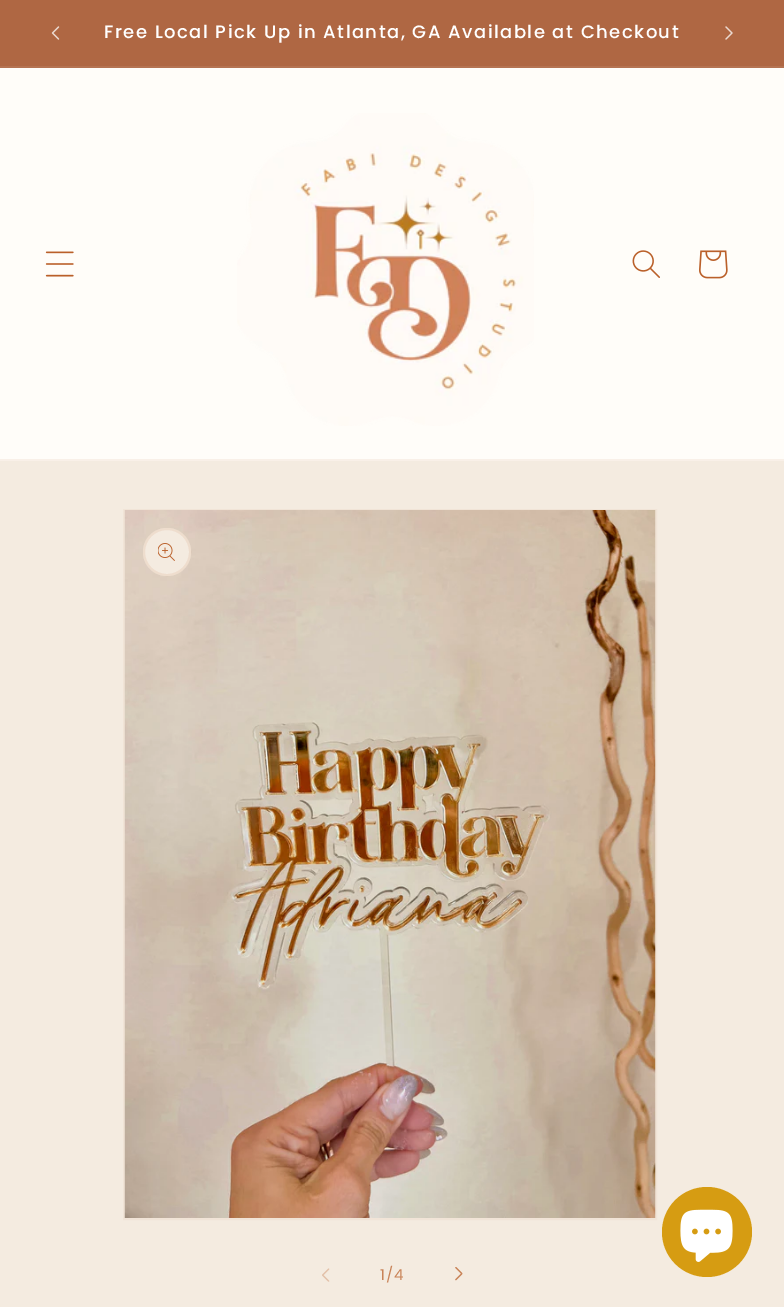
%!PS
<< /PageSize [784 1307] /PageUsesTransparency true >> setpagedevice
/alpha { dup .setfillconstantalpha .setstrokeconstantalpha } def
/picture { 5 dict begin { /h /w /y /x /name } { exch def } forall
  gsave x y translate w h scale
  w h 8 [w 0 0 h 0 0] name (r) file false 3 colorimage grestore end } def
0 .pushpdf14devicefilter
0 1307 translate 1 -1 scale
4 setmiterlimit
0.957 0.922 0.878 setrgbcolor
0 0 784 1307 rectfill
0.686 0.404 0.263 setrgbcolor
0 0 784 66 rectfill
0.71 0.451 0.322 setrgbcolor
0 66 784 2 rectfill
(img1.rgb) 51 26 9 14 picture
/Poppins-Medium [18 0 0 -18 0 0] selectfont
1 setgray
104 38 moveto 1.5 0 (Free Local Pick Up in Atlanta, GA Available at Checkout) ashow
(img2.rgb) 725 26 8 14 picture
1 0.992 0.976 setrgbcolor
0 68 784 391 rectfill
0.976 0.941 0.91 setrgbcolor
0 459 784 2 rectfill
(img3.rgb) 45 251 29 26 picture
(img4.rgb) 237 113 297 313 picture
(img5.rgb) 632 250 28 28 picture
(img6.rgb) 699 250 29 29 picture
0.945 0.894 0.843 setrgbcolor
2 setlinewidth
124 510 532 709 rectstroke
(img7.rgb) 124 510 532 708 picture
0.957 0.922 0.878 setrgbcolor
newpath 167 552 24 0 360 arc closepath fill
0.1 alpha
0.729 0.376 0.165 setrgbcolor
newpath 167 552 23 0 360 arc closepath stroke
1 alpha
(img8.rgb) 158 543 17 18 picture
(img9.rgb) 322 1268 8 14 picture
/Poppins-Regular [15 0 0 -15 0 0] selectfont
0.788 0.514 0.345 setrgbcolor
380 1280 moveto 1 0 (1/4) ashow
(img10.rgb) 455 1267 8 14 picture
0.839 0.612 0.071 setrgbcolor
newpath 707 1232 45 0 360 arc closepath fill
(img11.rgb) 680 1209 53 53 picture
.poppdf14devicefilter showpage
